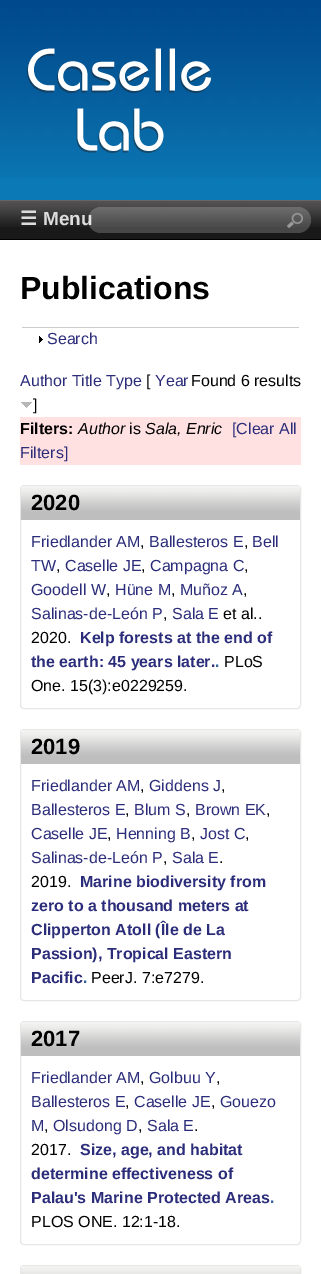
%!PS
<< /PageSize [321 1274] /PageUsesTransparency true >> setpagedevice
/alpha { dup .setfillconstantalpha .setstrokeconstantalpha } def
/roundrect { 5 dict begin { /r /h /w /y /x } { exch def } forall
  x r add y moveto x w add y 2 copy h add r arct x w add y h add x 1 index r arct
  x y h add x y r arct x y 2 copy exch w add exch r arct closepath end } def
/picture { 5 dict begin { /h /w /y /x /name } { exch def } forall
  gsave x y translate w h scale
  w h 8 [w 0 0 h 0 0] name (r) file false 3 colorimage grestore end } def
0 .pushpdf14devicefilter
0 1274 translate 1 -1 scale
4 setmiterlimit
0.043 0.475 0.71 setrgbcolor
0 0 321 1274 rectfill
(img1.rgb) 0 0 321 178 picture
(img2.rgb) 27 48 185 105 picture
0.098 setgray
0 227 321 12 rectfill
(img3.rgb) 0 201 321 26 picture
0.4 setgray
0 200 321 1 rectfill
0 setgray
0 239 321 1 rectfill
/DejaVuSans-Bold [19 0 0 -19 0 0] selectfont
0.867 setgray
20 225 moveto (☰) show
/LiberationSans-Bold [19 0 0 -19 0 0] selectfont
43 225 moveto (Menu) show
0.2 alpha
1 setgray
88 207 223 26 13 roundrect fill
1 alpha
(img4.rgb) 287 213 16 15 picture
0 240 321 1034 rectfill
/LiberationSans-Bold [32 0 0 -32 0 0] selectfont
0 setgray
20 299 moveto (Publications) show
0.8 setgray
22 327 277 1 rectfill
(img5.rgb) 39 336 4 7 picture
/LiberationSans-Regular [16 0 0 -16 0 0] selectfont
0.173 0.176 0.478 setrgbcolor
47 344 moveto (Search) show
20 386 moveto (Author Title Type) show
0 setgray
146 386 moveto ([) show
0.173 0.176 0.478 setrgbcolor
155 386 moveto (Year) show
0 setgray
191 386 moveto (Found 6 results) show
(img6.rgb) 21 402 11 6 picture
33 410 moveto (]) show
1 0.882 0.882 setrgbcolor
20 417 281 48 rectfill
/LiberationSans-Bold [16 0 0 -16 0 0] selectfont
0 setgray
20 434 moveto (Filters:) show
/LiberationSans-Italic [16 0 0 -16 0 0] selectfont
78 434 moveto (Author) show
/LiberationSans-Regular [16 0 0 -16 0 0] selectfont
129 434 moveto (is) show
/LiberationSans-Italic [16 0 0 -16 0 0] selectfont
145 434 moveto (Sala, Enric) show
/LiberationSans-Regular [16 0 0 -16 0 0] selectfont
0.173 0.176 0.478 setrgbcolor
232 434 moveto ([Clear All) show
20 458 moveto (Filters]) show
0.902 setgray
20.5 485.5 280 223 3.5 roundrect stroke
(img7.rgb) 21 486 279 34 picture
/LiberationSans-Bold [22 0 0 -22 0 0] selectfont
0 setgray
31 510 moveto (2020) show
/LiberationSans-Regular [16 0 0 -16 0 0] selectfont
0.173 0.176 0.478 setrgbcolor
31 547 moveto (Friedlander AM) show
0 setgray
140 547 moveto (,) show
0.173 0.176 0.478 setrgbcolor
149 547 moveto (Ballesteros E) show
0 setgray
244 547 moveto (,) show
0.173 0.176 0.478 setrgbcolor
252 547 moveto (Bell) show
31 571 moveto (TW) show
65 571 moveto (Caselle JE) show
150 571 moveto (Campagna C) show
0 setgray
56 571 moveto (,) show
141 571 moveto (,) show
244 571 moveto (,) show
0.173 0.176 0.478 setrgbcolor
31 595 moveto (Goodell W) show
0 setgray
106 595 moveto (,) show
0.173 0.176 0.478 setrgbcolor
115 595 moveto (Hüne M) show
0 setgray
171 595 moveto (,) show
0.173 0.176 0.478 setrgbcolor
180 595 moveto (Muñoz A) show
0 setgray
243 595 moveto (,) show
0.173 0.176 0.478 setrgbcolor
31 619 moveto (Salinas-de-León P) show
0 setgray
163 619 moveto (,) show
0.173 0.176 0.478 setrgbcolor
172 619 moveto (Sala E) show
0 setgray
223 619 moveto (et al..) show
31 643 moveto (2020.) show
/LiberationSans-Bold [16 0 0 -16 0 0] selectfont
0.173 0.176 0.478 setrgbcolor
80 643 moveto (Kelp forests at the end of) show
31 667 moveto (the earth: 45 years later.) show
0.2 0.396 0.6 setrgbcolor
215 667 moveto (.) show
/LiberationSans-Regular [16 0 0 -16 0 0] selectfont
0 setgray
224 667 moveto (PLoS) show
31 691 moveto (One. 15\(3\):e0229259.) show
0.902 setgray
20.5 729.5 280 271 3.5 roundrect stroke
(img7.rgb) 21 730 279 34 picture
/LiberationSans-Bold [22 0 0 -22 0 0] selectfont
0 setgray
31 754 moveto (2019) show
/LiberationSans-Regular [16 0 0 -16 0 0] selectfont
0.173 0.176 0.478 setrgbcolor
31 791 moveto (Friedlander AM) show
0 setgray
140 791 moveto (,) show
0.173 0.176 0.478 setrgbcolor
149 791 moveto (Giddens J) show
0 setgray
221 791 moveto (,) show
0.173 0.176 0.478 setrgbcolor
31 815 moveto (Ballesteros E) show
0 setgray
125 815 moveto (,) show
0.173 0.176 0.478 setrgbcolor
134 815 moveto (Blum S) show
0 setgray
186 815 moveto (,) show
0.173 0.176 0.478 setrgbcolor
195 815 moveto (Brown EK) show
0 setgray
266 815 moveto (,) show
0.173 0.176 0.478 setrgbcolor
31 839 moveto (Caselle JE) show
0 setgray
107 839 moveto (,) show
0.173 0.176 0.478 setrgbcolor
116 839 moveto (Henning B) show
0 setgray
191 839 moveto (,) show
0.173 0.176 0.478 setrgbcolor
200 839 moveto (Jost C) show
0 setgray
245 839 moveto (,) show
0.173 0.176 0.478 setrgbcolor
31 863 moveto (Salinas-de-León P) show
0 setgray
163 863 moveto (,) show
0.173 0.176 0.478 setrgbcolor
172 863 moveto (Sala E) show
0 setgray
219 863 moveto (.) show
31 887 moveto (2019.) show
/LiberationSans-Bold [16 0 0 -16 0 0] selectfont
0.173 0.176 0.478 setrgbcolor
80 887 moveto (Marine biodiversity from) show
31 911 moveto (zero to a thousand meters at) show
31 935 moveto (Clipperton Atoll \(Île de La) show
31 959 moveto (Passion\), Tropical Eastern) show
31 983 moveto (Pacific) show
0.2 0.396 0.6 setrgbcolor
83 983 moveto (.) show
/LiberationSans-Regular [16 0 0 -16 0 0] selectfont
0 setgray
91 983 moveto (PeerJ. 7:e7279.) show
0.902 setgray
20.5 1021.5 280 223 3.5 roundrect stroke
(img7.rgb) 21 1022 279 34 picture
/LiberationSans-Bold [22 0 0 -22 0 0] selectfont
0 setgray
31 1046 moveto (2017) show
/LiberationSans-Regular [16 0 0 -16 0 0] selectfont
0.173 0.176 0.478 setrgbcolor
31 1083 moveto (Friedlander AM) show
0 setgray
140 1083 moveto (,) show
0.173 0.176 0.478 setrgbcolor
149 1083 moveto (Golbuu Y) show
0 setgray
216 1083 moveto (,) show
0.173 0.176 0.478 setrgbcolor
31 1107 moveto (Ballesteros E) show
0 setgray
125 1107 moveto (,) show
0.173 0.176 0.478 setrgbcolor
134 1107 moveto (Caselle JE) show
0 setgray
211 1107 moveto (,) show
0.173 0.176 0.478 setrgbcolor
220 1107 moveto (Gouezo) show
31 1131 moveto (M) show
53 1131 moveto (Olsudong D) show
147 1131 moveto (Sala E) show
0 setgray
44 1131 moveto (,) show
138 1131 moveto (,) show
194 1131 moveto (.) show
31 1155 moveto (2017.) show
/LiberationSans-Bold [16 0 0 -16 0 0] selectfont
0.173 0.176 0.478 setrgbcolor
80 1155 moveto (Size, age, and habitat) show
31 1179 moveto (determine effectiveness of) show
31 1203 moveto (Palau's Marine Protected Areas) show
0.2 0.396 0.6 setrgbcolor
270 1203 moveto (.) show
/LiberationSans-Regular [16 0 0 -16 0 0] selectfont
0 setgray
31 1227 moveto (PLOS ONE. 12:1-18.) show
0.902 setgray
20.5 1265.5 280 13 3.5 roundrect stroke
(img8.rgb) 21 1266 279 8 picture
.poppdf14devicefilter showpage
